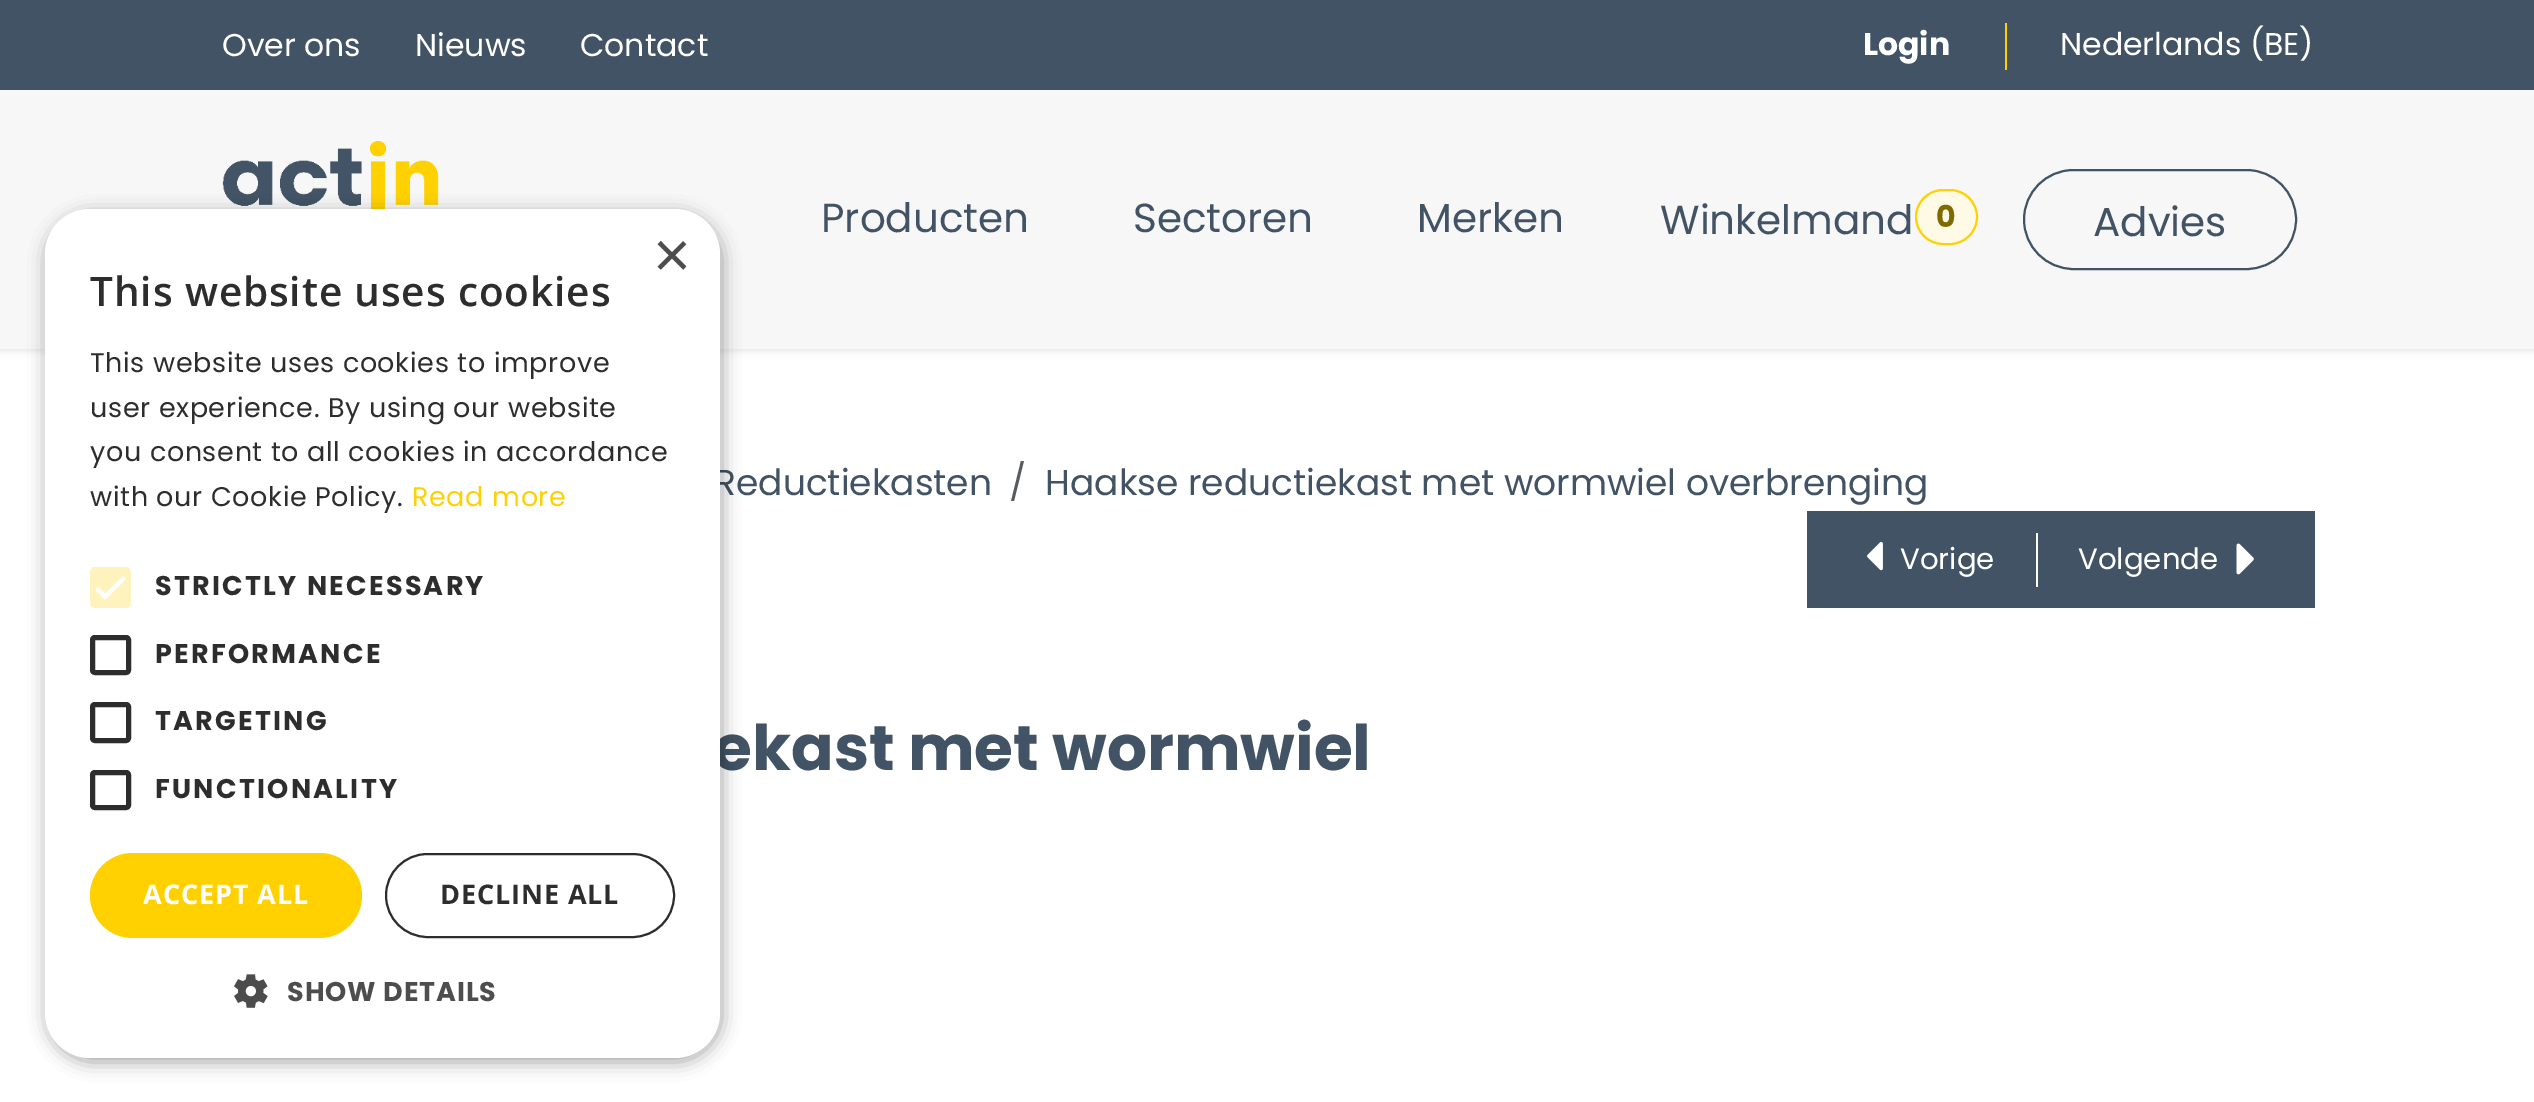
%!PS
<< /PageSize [2534 1102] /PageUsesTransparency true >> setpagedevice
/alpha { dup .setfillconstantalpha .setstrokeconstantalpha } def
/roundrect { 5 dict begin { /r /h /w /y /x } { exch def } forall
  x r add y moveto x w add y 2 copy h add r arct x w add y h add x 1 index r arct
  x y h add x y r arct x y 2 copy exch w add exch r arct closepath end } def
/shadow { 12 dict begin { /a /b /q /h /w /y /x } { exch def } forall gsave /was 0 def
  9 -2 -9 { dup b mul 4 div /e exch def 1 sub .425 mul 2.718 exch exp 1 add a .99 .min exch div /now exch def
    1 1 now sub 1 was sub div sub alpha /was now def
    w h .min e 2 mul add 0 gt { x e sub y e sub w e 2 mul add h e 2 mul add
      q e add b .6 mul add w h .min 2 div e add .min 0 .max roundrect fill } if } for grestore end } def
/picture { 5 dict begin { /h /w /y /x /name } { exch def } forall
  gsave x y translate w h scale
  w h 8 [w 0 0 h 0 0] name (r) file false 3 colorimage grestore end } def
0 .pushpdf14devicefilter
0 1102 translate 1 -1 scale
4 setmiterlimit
1 setgray
0 0 2534 1102 rectfill
0.255 0.325 0.392 setrgbcolor
0 0 2534 90 rectfill
/Poppins-Regular [31.5 0 0 -31.5 0 0] selectfont
1 setgray
222 56 moveto (Over ons) show
415 56 moveto (Nieuws) show
580 56 moveto (Contact) show
1 0.82 0 setrgbcolor
2005 23 2 47 rectfill
/Poppins-Bold [31.5 0 0 -31.5 0 0] selectfont
1 setgray
1863 55 moveto (Login) show
/Poppins-Regular [31.5 0 0 -31.5 0 0] selectfont
2060 55 moveto (Nederlands \(BE\)) show
0 setgray
0 92 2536 259 0 3.5 0.1 shadow
0.969 setgray
0 90 2534 259 rectfill
(img1.rgb) 222 141 217 68 picture
/Poppins-Regular [40.5 0 0 -40.5 0 0] selectfont
0.255 0.325 0.392 setrgbcolor
821 232 moveto (Producten) show
1133 232 moveto (Sectoren) show
1417 232 moveto (Merken) show
1660 234 moveto (Winkelmand) show
1 0.98 0.902 setrgbcolor
1916 190 61 54 27 roundrect gsave fill grestore
1 0.82 0 setrgbcolor
2 setlinewidth
stroke
/Poppins-Bold [30 0 0 -30 0 0] selectfont
0.502 0.412 0 setrgbcolor
1936 227 moveto (0) show
0.255 0.325 0.392 setrgbcolor
2024 170 272 99 49.5 roundrect stroke
/Poppins-Regular [40.5 0 0 -40.5 0 0] selectfont
2093 236 moveto (Advies) show
/Poppins-Regular [36 0 0 -36 0 0] selectfont
714 495 moveto (Reductiekasten) show
0.349 0.361 0.373 setrgbcolor
1009 495 moveto (/) show
0.255 0.325 0.392 setrgbcolor
1045 495 moveto (Haakse reductiekast met wormwiel overbrenging) show
1807 511 508 97 rectfill
(img2.rgb) 1867 541 16 30 picture
/Poppins-Regular [29.25 0 0 -29.25 0 0] selectfont
1 setgray
1900 569 moveto (Vorige) show
2036 533 2 54 rectfill
2078 569 moveto (Volgende) show
(img3.rgb) 2236 543 18 32 picture
/Poppins-Bold [63 0 0 -63 0 0] selectfont
0.255 0.325 0.392 setrgbcolor
713 770 moveto (ekast met wormwiel) show
0 setgray
47 214 675 848 45 9 0.35 shadow
1 setgray
45 209 675 849 45 roundrect fill
/LiberationSans-Regular [65 0 0 -65 0 0] selectfont
0.302 setgray
653 277 moveto (×) show
/OpenSans-SemiBold [40.5 0 0 -40.5 0 0] selectfont
0.176 setgray
90 306 moveto 0.9 0 (This website uses cookies) ashow
/Poppins-Regular [27 0 0 -27 0 0] selectfont
90 372 moveto 0.65 0 (This website uses cookies to improve) ashow
90 417 moveto 0.65 0 (user experience. By using our website) ashow
90 461 moveto 0.65 0 (you consent to all cookies in accordance) ashow
90 506 moveto 0.65 0 (with our Cookie Policy.) ashow
1 0.82 0 setrgbcolor
412 506 moveto 0.65 0 (Read more) ashow
1 0.953 0.741 setrgbcolor
90 567 41 41 5 roundrect fill
1 setgray
4.1 setlinewidth
newpath 97 588.5 moveto 105 597 lineto 124.5 577.5 lineto stroke
/Poppins-Bold [27 0 0 -27 0 0] selectfont
0.176 setgray
155 595 moveto 2.25 0 (STRICTLY NECESSARY) ashow
5 setlinewidth
92.5 637.5 36 35 2.5 roundrect stroke
155 663 moveto 2.25 0 (PERFORMANCE) ashow
92.5 704.5 36 36 2.5 roundrect stroke
155 730 moveto 2.25 0 (TARGETING) ashow
92.5 772.5 36 35 2.5 roundrect stroke
155 798 moveto 2.25 0 (FUNCTIONALITY) ashow
1 0.82 0 setrgbcolor
90 853 272 85 42.5 roundrect fill
/OpenSans-Bold [27 0 0 -27 0 0] selectfont
1 setgray
143 904 moveto 0.9 0 (ACCEPT ALL) ashow
0.176 setgray
2 setlinewidth
386 854 288 83 41.5 roundrect stroke
440 904 moveto 0.9 0 (DECLINE ALL) ashow
(img4.rgb) 234 974 34 34 picture
/Poppins-Bold [27 0 0 -27 0 0] selectfont
0.302 setgray
287 1001 moveto 0.9 0 (SHOW DETAILS) ashow
.poppdf14devicefilter showpage
